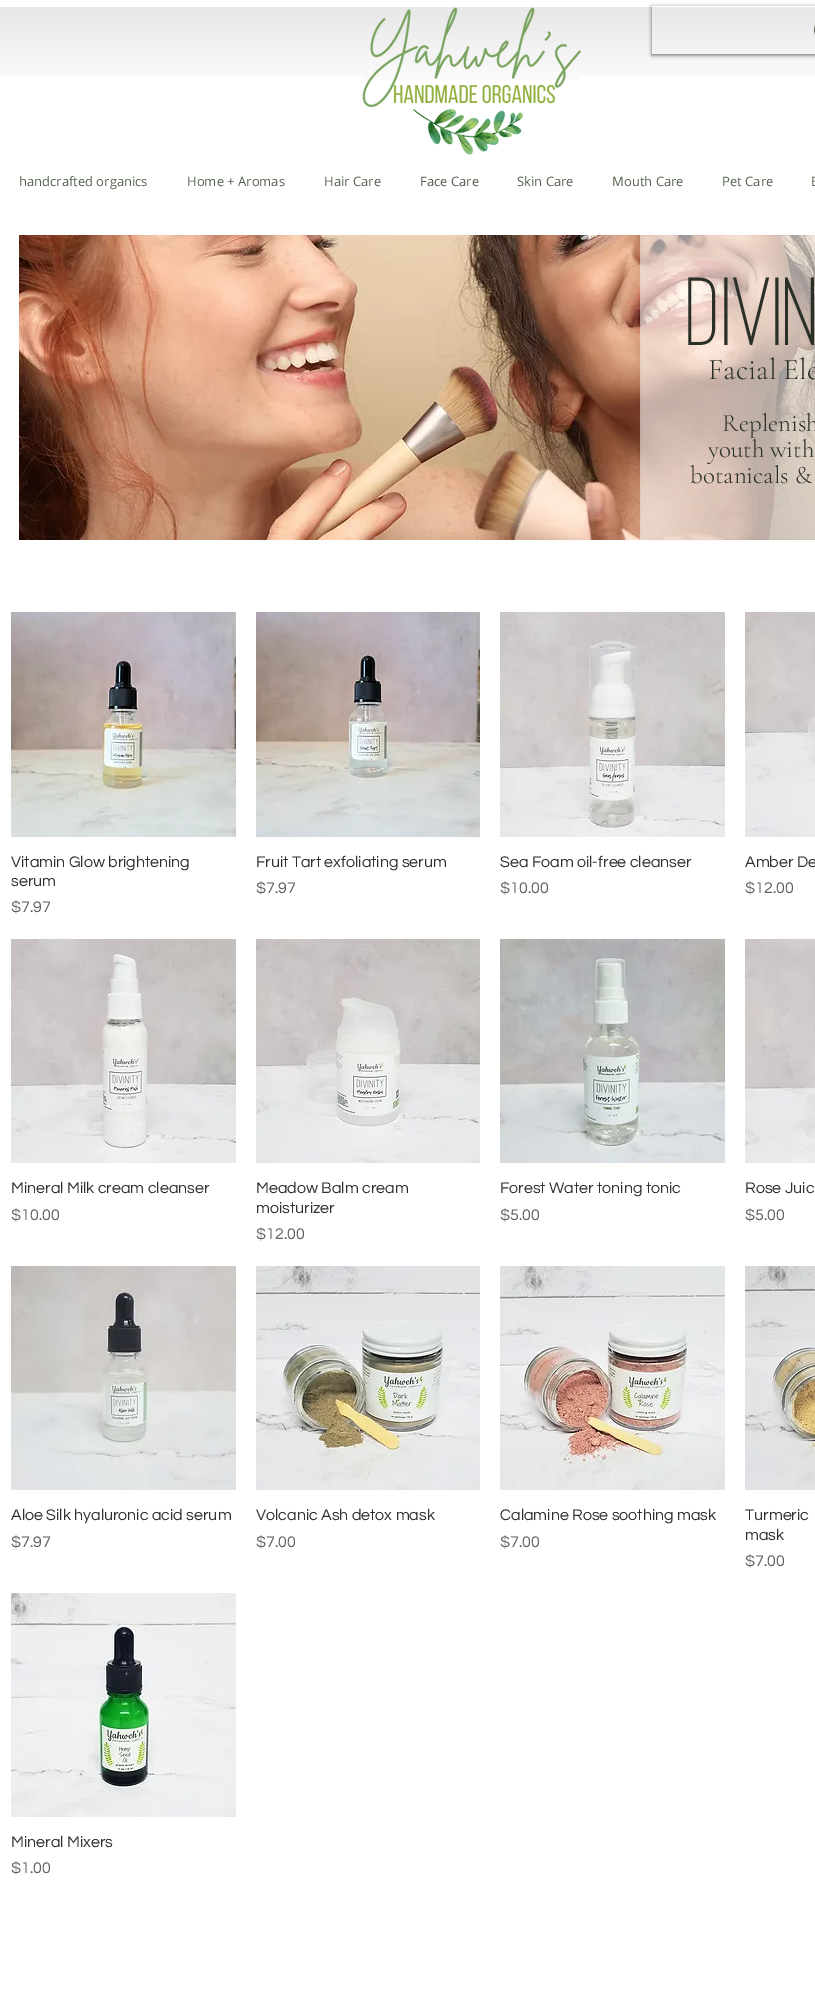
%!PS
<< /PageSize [815 1989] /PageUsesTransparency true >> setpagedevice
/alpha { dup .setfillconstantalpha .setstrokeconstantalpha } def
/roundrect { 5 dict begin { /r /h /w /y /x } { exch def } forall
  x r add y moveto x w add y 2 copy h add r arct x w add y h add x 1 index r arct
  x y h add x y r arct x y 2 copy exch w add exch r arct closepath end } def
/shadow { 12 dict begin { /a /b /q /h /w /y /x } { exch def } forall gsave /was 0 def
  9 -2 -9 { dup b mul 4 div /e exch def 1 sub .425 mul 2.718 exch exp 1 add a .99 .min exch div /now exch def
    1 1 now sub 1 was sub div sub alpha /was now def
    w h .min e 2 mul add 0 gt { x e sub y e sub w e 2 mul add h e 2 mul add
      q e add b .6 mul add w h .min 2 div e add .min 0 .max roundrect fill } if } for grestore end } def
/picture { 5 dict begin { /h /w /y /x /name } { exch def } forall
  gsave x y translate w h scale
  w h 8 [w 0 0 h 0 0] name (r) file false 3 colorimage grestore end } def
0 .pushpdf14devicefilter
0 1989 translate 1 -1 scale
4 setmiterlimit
1 setgray
0 0 815 1989 rectfill
(img1.rgb) 0 7 815 69 picture
(img2.rgb) 362 7 219 148 picture
gsave
newpath 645 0 moveto 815 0 lineto 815 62 lineto 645 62 lineto closepath 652 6 moveto 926 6 lineto 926 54 lineto 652 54 lineto closepath eoclip newpath
0 setgray
652 7 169 48 0 2 0.6 shadow
grestore
(img3.rgb) 814 25 1 10 picture
/OpenSans-Regular [13 0 0 -13 0 0] selectfont
0.325 0.38 0.302 setrgbcolor
19 186 moveto (handcrafted organics) show
187 186 moveto (Home + Aromas) show
324 186 moveto (Hair Care) show
0.365 0.337 0.298 setrgbcolor
420 186 moveto (Face Care) show
0.325 0.38 0.302 setrgbcolor
517 186 moveto (Skin Care) show
612 186 moveto (Mouth Care) show
722 186 moveto (Pet Care) show
811 186 moveto (E) show
(img4.rgb) 19 235 796 305 picture
0.59 alpha
1 setgray
640 235 175 305 rectfill
0.04 alpha
0.188 setgray
640.5 235.5 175 304 rectstroke
/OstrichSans-Medium [100 0 0 -100 0 0] selectfont
1 alpha
0.165 0.188 0.153 setrgbcolor
687 345 moveto (Divin) show
/CormorantGaramond-Light [30 0 0 -30 0 0] selectfont
708 379 moveto (Facial Ele) show
/CormorantGaramond-Light [25 0 0 -25 0 0] selectfont
722 431 moveto (Replenish) show
708 457 moveto (youth with) show
690 483 moveto (botanicals &) show
(img5.rgb) 11 612 225 225 picture
/Questrial-Regular [16 0 0 -16 0 0] selectfont
0.188 setgray
11 867 moveto (Vitamin Glow brightening) show
11 886 moveto (serum) show
0.376 setgray
11 912 moveto ($7.97) show
(img6.rgb) 256 612 224 225 picture
0.188 setgray
256 867 moveto (Fruit Tart exfoliating serum) show
0.376 setgray
256 893 moveto ($7.97) show
(img7.rgb) 500 612 225 225 picture
0.188 setgray
500 867 moveto (Sea Foam oil-free cleanser) show
0.376 setgray
500 893 moveto ($10.00) show
(img8.rgb) 745 612 70 225 picture
0.188 setgray
745 867 moveto (Amber De) show
0.376 setgray
745 893 moveto ($12.00) show
(img9.rgb) 11 939 225 224 picture
0.188 setgray
11 1193 moveto (Mineral Milk cream cleanser) show
0.376 setgray
11 1220 moveto ($10.00) show
(img10.rgb) 256 939 224 224 picture
0.188 setgray
256 1193 moveto (Meadow Balm cream) show
256 1213 moveto (moisturizer) show
0.376 setgray
256 1239 moveto ($12.00) show
(img11.rgb) 500 939 225 224 picture
0.188 setgray
500 1193 moveto (Forest Water toning tonic) show
0.376 setgray
500 1220 moveto ($5.00) show
(img12.rgb) 745 939 70 224 picture
0.188 setgray
745 1193 moveto (Rose Juic) show
0.376 setgray
745 1220 moveto ($5.00) show
(img13.rgb) 11 1266 225 224 picture
0.188 setgray
11 1520 moveto (Aloe Silk hyaluronic acid serum) show
0.376 setgray
11 1547 moveto ($7.97) show
(img14.rgb) 256 1266 224 224 picture
0.188 setgray
256 1520 moveto (Volcanic Ash detox mask) show
0.376 setgray
256 1547 moveto ($7.00) show
(img15.rgb) 500 1266 225 224 picture
0.188 setgray
500 1520 moveto (Calamine Rose soothing mask) show
0.376 setgray
500 1547 moveto ($7.00) show
(img16.rgb) 745 1266 70 224 picture
0.188 setgray
745 1520 moveto (Turmeric) show
745 1540 moveto (mask) show
0.376 setgray
745 1566 moveto ($7.00) show
(img17.rgb) 11 1593 225 224 picture
0.188 setgray
11 1847 moveto (Mineral Mixers) show
0.376 setgray
11 1873 moveto ($1.00) show
.poppdf14devicefilter showpage
